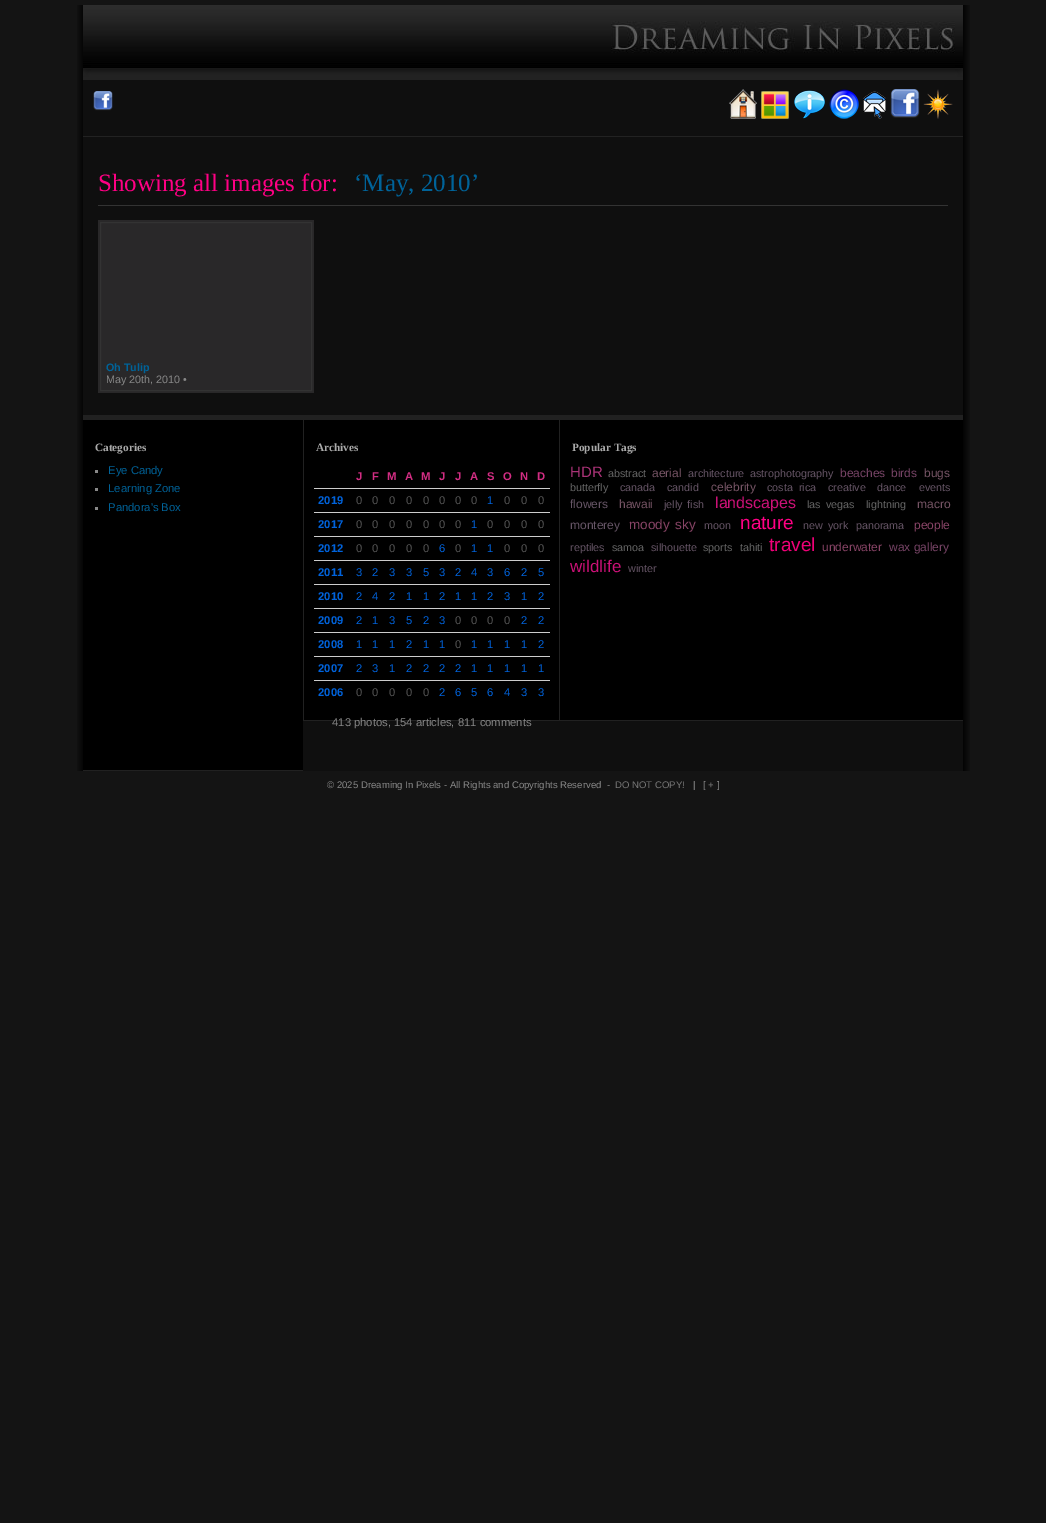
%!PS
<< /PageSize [1046 1523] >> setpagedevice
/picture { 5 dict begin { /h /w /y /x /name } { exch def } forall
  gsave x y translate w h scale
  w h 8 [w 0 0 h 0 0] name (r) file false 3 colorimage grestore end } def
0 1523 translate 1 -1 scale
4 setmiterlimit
0.078 setgray
0 0 1046 1523 rectfill
(img1.rgb) 77 5 893 766 picture
0.059 setgray
83 80 880 691 rectfill
(img2.rgb) 83 5 880 75 picture
0.133 setgray
83 136 880 1 rectfill
(img3.rgb) 93 91 20 20 picture
(img4.rgb) 729 89 28 30 picture
(img5.rgb) 761 91 28 28 picture
(img6.rgb) 794 90 31 29 picture
(img7.rgb) 829 89 30 30 picture
(img8.rgb) 863 91 23 28 picture
(img9.rgb) 890 89 30 29 picture
(img10.rgb) 923 89 30 30 picture
0.2 setgray
98 205 850 1 rectfill
/LiberationSerif-Regular [25 0 0 -25 0 0] selectfont
1 0 0.518 setrgbcolor
98 191 moveto (Showing all images for:) show
0 0.388 0.6 setrgbcolor
354 191 moveto (‘May, 2010’) show
0.161 0.157 0.161 setrgbcolor
98 220 216 173 rectfill
0.2 setgray
100.5 222.5 211 168 rectstroke
/LiberationSans-Bold [10.75 0 0 -10.75 0 0] selectfont
0 0.388 0.6 setrgbcolor
106 371 moveto (Oh Tulip) show
/LiberationSans-Regular [10.75 0 0 -10.75 0 0] selectfont
0.533 setgray
106 383 moveto (May 20th, 2010 •) show
0 setgray
83 420 220 350 rectfill
0.129 setgray
83 415 880 5 rectfill
83 770 220 1 rectfill
/LiberationSerif-Bold [11.25 0 0 -11.25 0 0] selectfont
0.667 setgray
95 451 moveto (Categories) show
0.533 setgray
95 470 3 3 rectfill
/LiberationSans-Regular [11.25 0 0 -11.25 0 0] selectfont
0 0.388 0.6 setrgbcolor
108 474 moveto (Eye Candy) show
0.533 setgray
95 488 3 3 rectfill
0 0.388 0.6 setrgbcolor
108 492 moveto (Learning Zone) show
0.533 setgray
95 507 3 3 rectfill
0 0.388 0.6 setrgbcolor
108 511 moveto (Pandora's Box) show
0 setgray
304 420 255 300 rectfill
0.129 setgray
559 415 1 306 rectfill
303 720 660 1 rectfill
303 415 1 306 rectfill
/LiberationSerif-Bold [11.25 0 0 -11.25 0 0] selectfont
0.667 setgray
316 451 moveto (Archives) show
/LiberationSans-Bold [11.25 0 0 -11.25 0 0] selectfont
0.824 0.176 0.514 setrgbcolor
356 480 moveto (J) show
372 480 moveto (F) show
387 480 moveto (M) show
405 480 moveto (A) show
421 480 moveto (M) show
439 480 moveto (J) show
455 480 moveto (J) show
470 480 moveto (A) show
487 480 moveto (S) show
503 480 moveto (O) show
520 480 moveto (N) show
537 480 moveto (D) show
0 0.388 0.863 setrgbcolor
318 504 moveto (2019) show
/LiberationSans-Regular [11.25 0 0 -11.25 0 0] selectfont
0.333 setgray
356 504 moveto (0) show
372 504 moveto (0) show
389 504 moveto (0) show
406 504 moveto (0) show
423 504 moveto (0) show
439 504 moveto (0) show
455 504 moveto (0) show
471 504 moveto (0) show
0 0.388 0.863 setrgbcolor
487 504 moveto (1) show
0.333 setgray
504 504 moveto (0) show
521 504 moveto (0) show
0.8 setgray
314 488 236 1 rectfill
0.333 setgray
538 504 moveto (0) show
/LiberationSans-Bold [11.25 0 0 -11.25 0 0] selectfont
0 0.388 0.863 setrgbcolor
318 528 moveto (2017) show
/LiberationSans-Regular [11.25 0 0 -11.25 0 0] selectfont
0.333 setgray
356 528 moveto (0) show
372 528 moveto (0) show
389 528 moveto (0) show
406 528 moveto (0) show
423 528 moveto (0) show
439 528 moveto (0) show
455 528 moveto (0) show
0 0.388 0.863 setrgbcolor
471 528 moveto (1) show
0.333 setgray
487 528 moveto (0) show
504 528 moveto (0) show
521 528 moveto (0) show
0.8 setgray
314 512 236 1 rectfill
0.333 setgray
538 528 moveto (0) show
/LiberationSans-Bold [11.25 0 0 -11.25 0 0] selectfont
0 0.388 0.863 setrgbcolor
318 552 moveto (2012) show
/LiberationSans-Regular [11.25 0 0 -11.25 0 0] selectfont
0.333 setgray
356 552 moveto (0) show
372 552 moveto (0) show
389 552 moveto (0) show
406 552 moveto (0) show
423 552 moveto (0) show
0 0.388 0.863 setrgbcolor
439 552 moveto (6) show
0.333 setgray
455 552 moveto (0) show
0 0.388 0.863 setrgbcolor
471 552 moveto (1) show
487 552 moveto (1) show
0.333 setgray
504 552 moveto (0) show
521 552 moveto (0) show
0.8 setgray
314 536 236 1 rectfill
0.333 setgray
538 552 moveto (0) show
/LiberationSans-Bold [11.25 0 0 -11.25 0 0] selectfont
0 0.388 0.863 setrgbcolor
318 576 moveto (2011) show
/LiberationSans-Regular [11.25 0 0 -11.25 0 0] selectfont
356 576 moveto (3) show
372 576 moveto (2) show
389 576 moveto (3) show
406 576 moveto (3) show
423 576 moveto (5) show
439 576 moveto (3) show
455 576 moveto (2) show
471 576 moveto (4) show
487 576 moveto (3) show
504 576 moveto (6) show
521 576 moveto (2) show
0.8 setgray
314 560 236 1 rectfill
0 0.388 0.863 setrgbcolor
538 576 moveto (5) show
/LiberationSans-Bold [11.25 0 0 -11.25 0 0] selectfont
318 600 moveto (2010) show
/LiberationSans-Regular [11.25 0 0 -11.25 0 0] selectfont
356 600 moveto (2) show
372 600 moveto (4) show
389 600 moveto (2) show
406 600 moveto (1) show
423 600 moveto (1) show
439 600 moveto (2) show
455 600 moveto (1) show
471 600 moveto (1) show
487 600 moveto (2) show
504 600 moveto (3) show
521 600 moveto (1) show
0.8 setgray
314 584 236 1 rectfill
0 0.388 0.863 setrgbcolor
538 600 moveto (2) show
/LiberationSans-Bold [11.25 0 0 -11.25 0 0] selectfont
318 624 moveto (2009) show
/LiberationSans-Regular [11.25 0 0 -11.25 0 0] selectfont
356 624 moveto (2) show
372 624 moveto (1) show
389 624 moveto (3) show
406 624 moveto (5) show
423 624 moveto (2) show
439 624 moveto (3) show
0.333 setgray
455 624 moveto (0) show
471 624 moveto (0) show
487 624 moveto (0) show
504 624 moveto (0) show
0 0.388 0.863 setrgbcolor
521 624 moveto (2) show
0.8 setgray
314 608 236 1 rectfill
0 0.388 0.863 setrgbcolor
538 624 moveto (2) show
/LiberationSans-Bold [11.25 0 0 -11.25 0 0] selectfont
318 648 moveto (2008) show
/LiberationSans-Regular [11.25 0 0 -11.25 0 0] selectfont
356 648 moveto (1) show
372 648 moveto (1) show
389 648 moveto (1) show
406 648 moveto (2) show
423 648 moveto (1) show
439 648 moveto (1) show
0.333 setgray
455 648 moveto (0) show
0 0.388 0.863 setrgbcolor
471 648 moveto (1) show
487 648 moveto (1) show
504 648 moveto (1) show
521 648 moveto (1) show
0.8 setgray
314 632 236 1 rectfill
0 0.388 0.863 setrgbcolor
538 648 moveto (2) show
/LiberationSans-Bold [11.25 0 0 -11.25 0 0] selectfont
318 672 moveto (2007) show
/LiberationSans-Regular [11.25 0 0 -11.25 0 0] selectfont
356 672 moveto (2) show
372 672 moveto (3) show
389 672 moveto (1) show
406 672 moveto (2) show
423 672 moveto (2) show
439 672 moveto (2) show
455 672 moveto (2) show
471 672 moveto (1) show
487 672 moveto (1) show
504 672 moveto (1) show
521 672 moveto (1) show
0.8 setgray
314 656 236 1 rectfill
0 0.388 0.863 setrgbcolor
538 672 moveto (1) show
/LiberationSans-Bold [11.25 0 0 -11.25 0 0] selectfont
318 696 moveto (2006) show
/LiberationSans-Regular [11.25 0 0 -11.25 0 0] selectfont
0.333 setgray
356 696 moveto (0) show
372 696 moveto (0) show
389 696 moveto (0) show
406 696 moveto (0) show
423 696 moveto (0) show
0 0.388 0.863 setrgbcolor
439 696 moveto (2) show
455 696 moveto (6) show
471 696 moveto (5) show
487 696 moveto (6) show
504 696 moveto (4) show
521 696 moveto (3) show
0.8 setgray
314 680 236 1 rectfill
0 0.388 0.863 setrgbcolor
538 696 moveto (3) show
0.533 setgray
332 726 moveto (413 photos, 154 articles, 811 comments) show
0 setgray
560 420 403 300 rectfill
/LiberationSerif-Bold [11.25 0 0 -11.25 0 0] selectfont
0.667 setgray
572 451 moveto (Popular Tags) show
/LiberationSans-Regular [15 0 0 -15 0 0] selectfont
0.667 0.2 0.467 setrgbcolor
570 477 moveto (HDR) show
/LiberationSans-Regular [10.75 0 0 -10.75 0 0] selectfont
0.4 setgray
608 477 moveto (abstract) show
/LiberationSans-Regular [12 0 0 -12 0 0] selectfont
0.467 0.333 0.4 setrgbcolor
652 477 moveto (aerial) show
/LiberationSans-Regular [10.75 0 0 -10.75 0 0] selectfont
0.4 0.333 0.4 setrgbcolor
688 477 moveto (architecture) show
750 477 moveto (astrophotography) show
/LiberationSans-Regular [12 0 0 -12 0 0] selectfont
0.467 0.267 0.4 setrgbcolor
840 477 moveto (beaches) show
891 477 moveto (birds) show
0.467 0.333 0.4 setrgbcolor
924 477 moveto (bugs) show
/LiberationSans-Regular [10.75 0 0 -10.75 0 0] selectfont
0.4 setgray
570 491 moveto (butterfly) show
0.4 0.333 0.4 setrgbcolor
620 491 moveto (canada) show
667 491 moveto (candid) show
/LiberationSans-Regular [12 0 0 -12 0 0] selectfont
0.467 0.333 0.4 setrgbcolor
711 491 moveto (celebrity) show
/LiberationSans-Regular [10.75 0 0 -10.75 0 0] selectfont
0.4 0.333 0.4 setrgbcolor
767 491 moveto 3 0 32 (costa rica) widthshow
828 491 moveto (creative) show
877 491 moveto (dance) show
919 491 moveto (events) show
/LiberationSans-Regular [12 0 0 -12 0 0] selectfont
570 508 moveto (flowers) show
0.467 0.333 0.4 setrgbcolor
619 508 moveto (hawaii) show
/LiberationSans-Regular [10.75 0 0 -10.75 0 0] selectfont
0.4 0.333 0.4 setrgbcolor
664 508 moveto 2 0 32 (jelly fish) widthshow
/LiberationSans-Regular [16 0 0 -16 0 0] selectfont
0.8 0.067 0.467 setrgbcolor
715 508 moveto (landscapes) show
/LiberationSans-Regular [10.75 0 0 -10.75 0 0] selectfont
0.4 setgray
807 508 moveto 2 0 32 (las vegas) widthshow
866 508 moveto (lightning) show
/LiberationSans-Regular [12 0 0 -12 0 0] selectfont
0.467 0.333 0.4 setrgbcolor
917 508 moveto (macro) show
0.4 0.333 0.4 setrgbcolor
570 529 moveto (monterey) show
/LiberationSans-Regular [13.5 0 0 -13.5 0 0] selectfont
0.533 0.267 0.4 setrgbcolor
629 529 moveto 2 0 32 (moody sky) widthshow
/LiberationSans-Regular [10.75 0 0 -10.75 0 0] selectfont
0.4 0.333 0.4 setrgbcolor
704 529 moveto (moon) show
/LiberationSans-Regular [19 0 0 -19 0 0] selectfont
1 0 0.518 setrgbcolor
740 529 moveto (nature) show
/LiberationSans-Regular [10.75 0 0 -10.75 0 0] selectfont
0.4 0.333 0.4 setrgbcolor
803 529 moveto 2 0 32 (new york) widthshow
856 529 moveto (panorama) show
/LiberationSans-Regular [12 0 0 -12 0 0] selectfont
0.533 0.267 0.4 setrgbcolor
914 529 moveto (people) show
/LiberationSans-Regular [10.75 0 0 -10.75 0 0] selectfont
0.4 0.333 0.4 setrgbcolor
570 551 moveto (reptiles) show
0.4 setgray
612 551 moveto (samoa) show
0.4 0.333 0.4 setrgbcolor
651 551 moveto (silhouette) show
0.4 setgray
703 551 moveto (sports) show
740 551 moveto (tahiti) show
/LiberationSans-Regular [19 0 0 -19 0 0] selectfont
0.933 0 0.467 setrgbcolor
769 551 moveto (travel) show
/LiberationSans-Regular [12 0 0 -12 0 0] selectfont
0.533 0.267 0.4 setrgbcolor
822 551 moveto (underwater) show
0.467 0.267 0.4 setrgbcolor
889 551 moveto (wax gallery) show
/LiberationSans-Regular [17 0 0 -17 0 0] selectfont
0.8 0.067 0.467 setrgbcolor
570 572 moveto (wildlife) show
/LiberationSans-Regular [10.75 0 0 -10.75 0 0] selectfont
0.4 0.333 0.4 setrgbcolor
628 572 moveto (winter) show
/LiberationSans-Regular [9.6 0 0 -9.6 0 0] selectfont
0.533 setgray
327 788 moveto (© 2025 Dreaming In Pixels - All Rights and Copyrights Reserved  -) show
0.467 setgray
615 788 moveto (DO NOT COPY!) show
0.533 setgray
693 788 moveto (|   [) show
0.467 setgray
708 788 moveto (+) show
0.533 setgray
717 788 moveto (]) show
showpage
